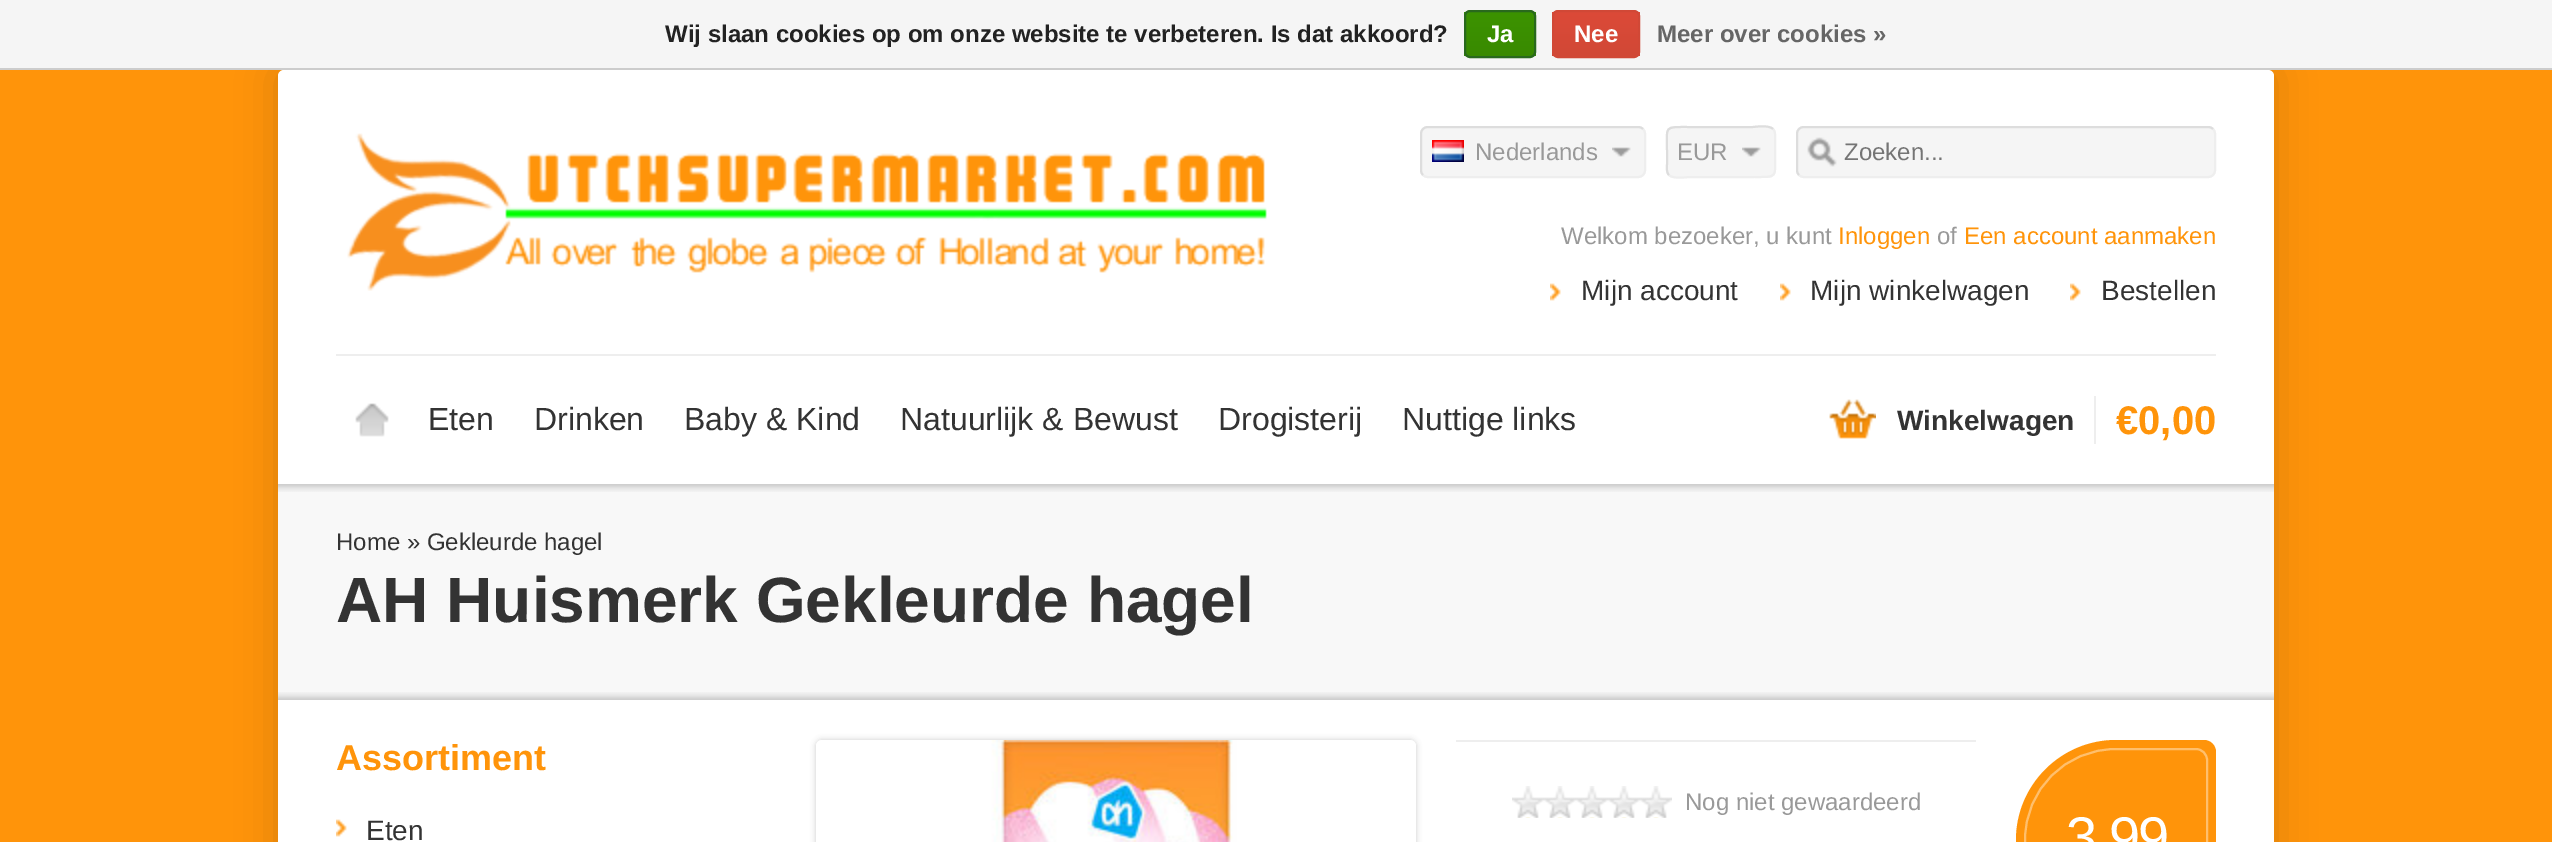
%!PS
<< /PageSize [2552 842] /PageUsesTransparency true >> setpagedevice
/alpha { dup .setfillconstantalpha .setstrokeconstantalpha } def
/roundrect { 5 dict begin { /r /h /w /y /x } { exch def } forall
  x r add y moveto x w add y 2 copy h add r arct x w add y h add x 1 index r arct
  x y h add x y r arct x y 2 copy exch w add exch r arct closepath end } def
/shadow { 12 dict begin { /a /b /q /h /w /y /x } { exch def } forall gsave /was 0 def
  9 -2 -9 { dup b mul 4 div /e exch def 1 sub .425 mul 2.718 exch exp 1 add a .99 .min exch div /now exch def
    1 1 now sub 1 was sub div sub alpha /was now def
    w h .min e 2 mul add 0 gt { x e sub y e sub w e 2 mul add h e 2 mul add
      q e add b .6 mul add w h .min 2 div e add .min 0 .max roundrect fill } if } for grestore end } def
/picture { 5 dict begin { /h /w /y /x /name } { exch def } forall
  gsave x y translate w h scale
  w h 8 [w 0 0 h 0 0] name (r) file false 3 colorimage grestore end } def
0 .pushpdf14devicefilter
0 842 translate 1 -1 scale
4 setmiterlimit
1 0.58 0.039 setrgbcolor
0 0 2552 842 rectfill
0 setgray
278 70 1996 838 6 20 0.15 shadow
0.961 setgray
0 0 2552 68 rectfill
0.8 setgray
0 68 2552 2 rectfill
/LiberationSans-Bold [24 0 0 -24 0 0] selectfont
0.133 setgray
665 42 moveto (Wij slaan cookies op om onze website te verbeteren. Is dat akkoord?) show
gsave
1464 10 72 48 6 roundrect clip newpath
gsave newpath 1464 12 moveto 1536 12 lineto 1536 56 lineto 1464 56 lineto closepath clip newpath
<< /ShadingType 2 /ColorSpace /DeviceRGB /Coords [1500 12 1500 56] /Extend [true true] /Function << /FunctionType 2 /Domain [0 1] /C0 [0.235 0.576 0] /C1 [0.224 0.541 0] /N 1 >> >> shfill grestore
grestore
0.161 0.412 0.114 setrgbcolor
2 setlinewidth
1465 11 70 46 5 roundrect stroke
1 setgray
1487 42 moveto (Ja) show
gsave
1552 10 88 48 6 roundrect clip newpath
gsave newpath 1552 12 moveto 1640 12 lineto 1640 56 lineto 1552 56 lineto closepath clip newpath
<< /ShadingType 2 /ColorSpace /DeviceRGB /Coords [1596 12 1596 56] /Extend [true true] /Function << /FunctionType 2 /Domain [0 1] /C0 [0.863 0.29 0.22] /C1 [0.82 0.282 0.212] /N 1 >> >> shfill grestore
grestore
0.82 0.282 0.212 setrgbcolor
1553 11 86 46 5 roundrect stroke
1 setgray
1574 42 moveto (Nee) show
0.4 setgray
1657 42 moveto (Meer over cookies ») show
1 setgray
278 70 1996 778 6 roundrect fill
(img1.rgb) 347 133 920 158 picture
0.961 setgray
1420 126 226 52 8 roundrect fill
(img2.rgb) 1612 147 19 10 picture
0.933 setgray
newpath 1643 129 moveto 1644.5 130.5 1645 132 1645 134 curveto 1645 170 lineto 1645 172 1644.5 173.5 1643 175 curveto 1641.5 176.5 1640 177 1638 177 curveto 1428 177 lineto 1426 177 1424.5 176.5 1423 175 curveto stroke
0.867 setgray
newpath 1423 175 moveto 1421.5 173.5 1421 172 1421 170 curveto 1421 134 lineto 1421 132 1421.5 130.5 1423 129 curveto 1424.5 127.5 1426 127 1428 127 curveto 1638 127 lineto 1640 127 1641.5 127.5 1643 129 curveto stroke
(img3.rgb) 1432 140 32 22 picture
/LiberationSans-Regular [24 0 0 -24 0 0] selectfont
0.6 setgray
1475 160 moveto (Nederlands) show
0.961 setgray
1666 126 110 52 8 roundrect fill
(img2.rgb) 1742 147 19 10 picture
0.933 setgray
newpath 1773 129 moveto 1776 132 1775 136.5 1775 140 curveto 1775 152 lineto 1775 178.5 1779 177 1752.5 177 curveto 1689.5 177 lineto 1687.5 177 1673.5 179.5 1669 175 curveto stroke
0.867 setgray
newpath 1669 175 moveto 1666 172 1667 167.5 1667 164 curveto 1667 152 lineto 1667 125.5 1663 127 1689.5 127 curveto 1752.5 127 lineto 1754.5 127 1768.5 124.5 1773 129 curveto stroke
0.6 setgray
1677 160 moveto (EUR) show
0.961 setgray
1796 126 420 52 8 roundrect fill
(img4.rgb) 1807 137 30 30 picture
0.933 setgray
newpath 2213 129 moveto 2214.5 130.5 2215 132 2215 134 curveto 2215 170 lineto 2215 172 2214.5 173.5 2213 175 curveto 2211.5 176.5 2210 177 2208 177 curveto 1804 177 lineto 1802 177 1800.5 176.5 1799 175 curveto stroke
0.867 setgray
newpath 1799 175 moveto 1797.5 173.5 1797 172 1797 170 curveto 1797 134 lineto 1797 132 1797.5 130.5 1799 129 curveto 1800.5 127.5 1802 127 1804 127 curveto 2208 127 lineto 2210 127 2211.5 127.5 2213 129 curveto stroke
0.459 setgray
1844 160 moveto (Zoeken...) show
0.6 setgray
1561 244 moveto (Welkom bezoeker, u kunt) show
1 0.58 0.039 setrgbcolor
1838 244 moveto (Inloggen) show
0.6 setgray
1937 244 moveto (of) show
1 0.58 0.039 setrgbcolor
1964 244 moveto (Een account aanmaken) show
1550 283 11 18 rectfill
(img5.rgb) 1550 274 188 32 picture
1780 283 11 18 rectfill
(img6.rgb) 1780 274 250 32 picture
2070 283 11 18 rectfill
(img7.rgb) 2070 274 146 32 picture
/LiberationSans-Regular [28 0 0 -28 0 0] selectfont
0.2 setgray
1581 300 moveto (Mijn account) show
1810 300 moveto (Mijn winkelwagen) show
2101 300 moveto (Bestellen) show
0.933 setgray
336 354 1880 2 rectfill
0.867 setgray
355 403 34 34 rectfill
(img8.rgb) 336 388 72 64 picture
/LiberationSans-Regular [32 0 0 -32 0 0] selectfont
0.2 setgray
428 430 moveto (Eten) show
534 430 moveto (Drinken) show
684 430 moveto (Baby & Kind) show
900 430 moveto (Natuurlijk & Bewust) show
1218 430 moveto (Drogisterij) show
1402 430 moveto (Nuttige links) show
1 0.58 0.039 setrgbcolor
1829 399 47 40 rectfill
(img9.rgb) 1828 396 48 48 picture
0.933 setgray
2094 396 2 48 rectfill
/LiberationSans-Bold [28 0 0 -28 0 0] selectfont
0.2 setgray
1897 430 moveto (Winkelwagen) show
/LiberationSans-Bold [40 0 0 -40 0 0] selectfont
1 0.58 0.039 setrgbcolor
2116 434 moveto (€0,00) show
0.973 setgray
278 484 1996 216 rectfill
(img10.rgb) 278 484 1996 8 picture
/LiberationSans-Regular [24 0 0 -24 0 0] selectfont
0.2 setgray
336 550 moveto (Home » Gekleurde hagel) show
/LiberationSans-Bold [64 0 0 -64 0 0] selectfont
336 622 moveto (AH Huismerk Gekleurde hagel) show
(img11.rgb) 278 692 1996 8 picture
/LiberationSans-Bold [36 0 0 -36 0 0] selectfont
1 0.58 0.039 setrgbcolor
336 770 moveto (Assortiment) show
336 819 11 18 rectfill
(img12.rgb) 336 810 30 30 picture
/LiberationSans-Regular [28 0 0 -28 0 0] selectfont
0.2 setgray
366 840 moveto (Eten) show
0 setgray
816 740 600 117 6 3 0.2 shadow
(img13.rgb) 816 740 600 102 picture
0.933 setgray
1456 740 520 2 rectfill
(img14.rgb) 1512 786 160 32 picture
/LiberationSans-Regular [24 0 0 -24 0 0] selectfont
0.6 setgray
1685 810 moveto (Nog niet gewaardeerd) show
1 0.58 0.039 setrgbcolor
newpath 2116 740 moveto 2204 740 lineto 2210.5 740 2216 745.5 2216 752 curveto 2216 840 lineto 2216 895 2171 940 2116 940 curveto 2061 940 2016 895 2016 840 curveto 2016 785 2061 740 2116 740 curveto closepath fill
1 0.749 0.424 setrgbcolor
newpath 2116 749 moveto 2196 749 lineto 2202 749 2207 754 2207 760 curveto 2207 840 lineto 2207 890.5 2166.5 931 2116 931 curveto 2065.5 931 2025 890.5 2025 840 curveto 2025 789.5 2065.5 749 2116 749 curveto closepath stroke
/LiberationSans-Regular [56 0 0 -56 0 0] selectfont
1 setgray
2066 856 moveto -2 0 (3,99) ashow
.poppdf14devicefilter showpage
